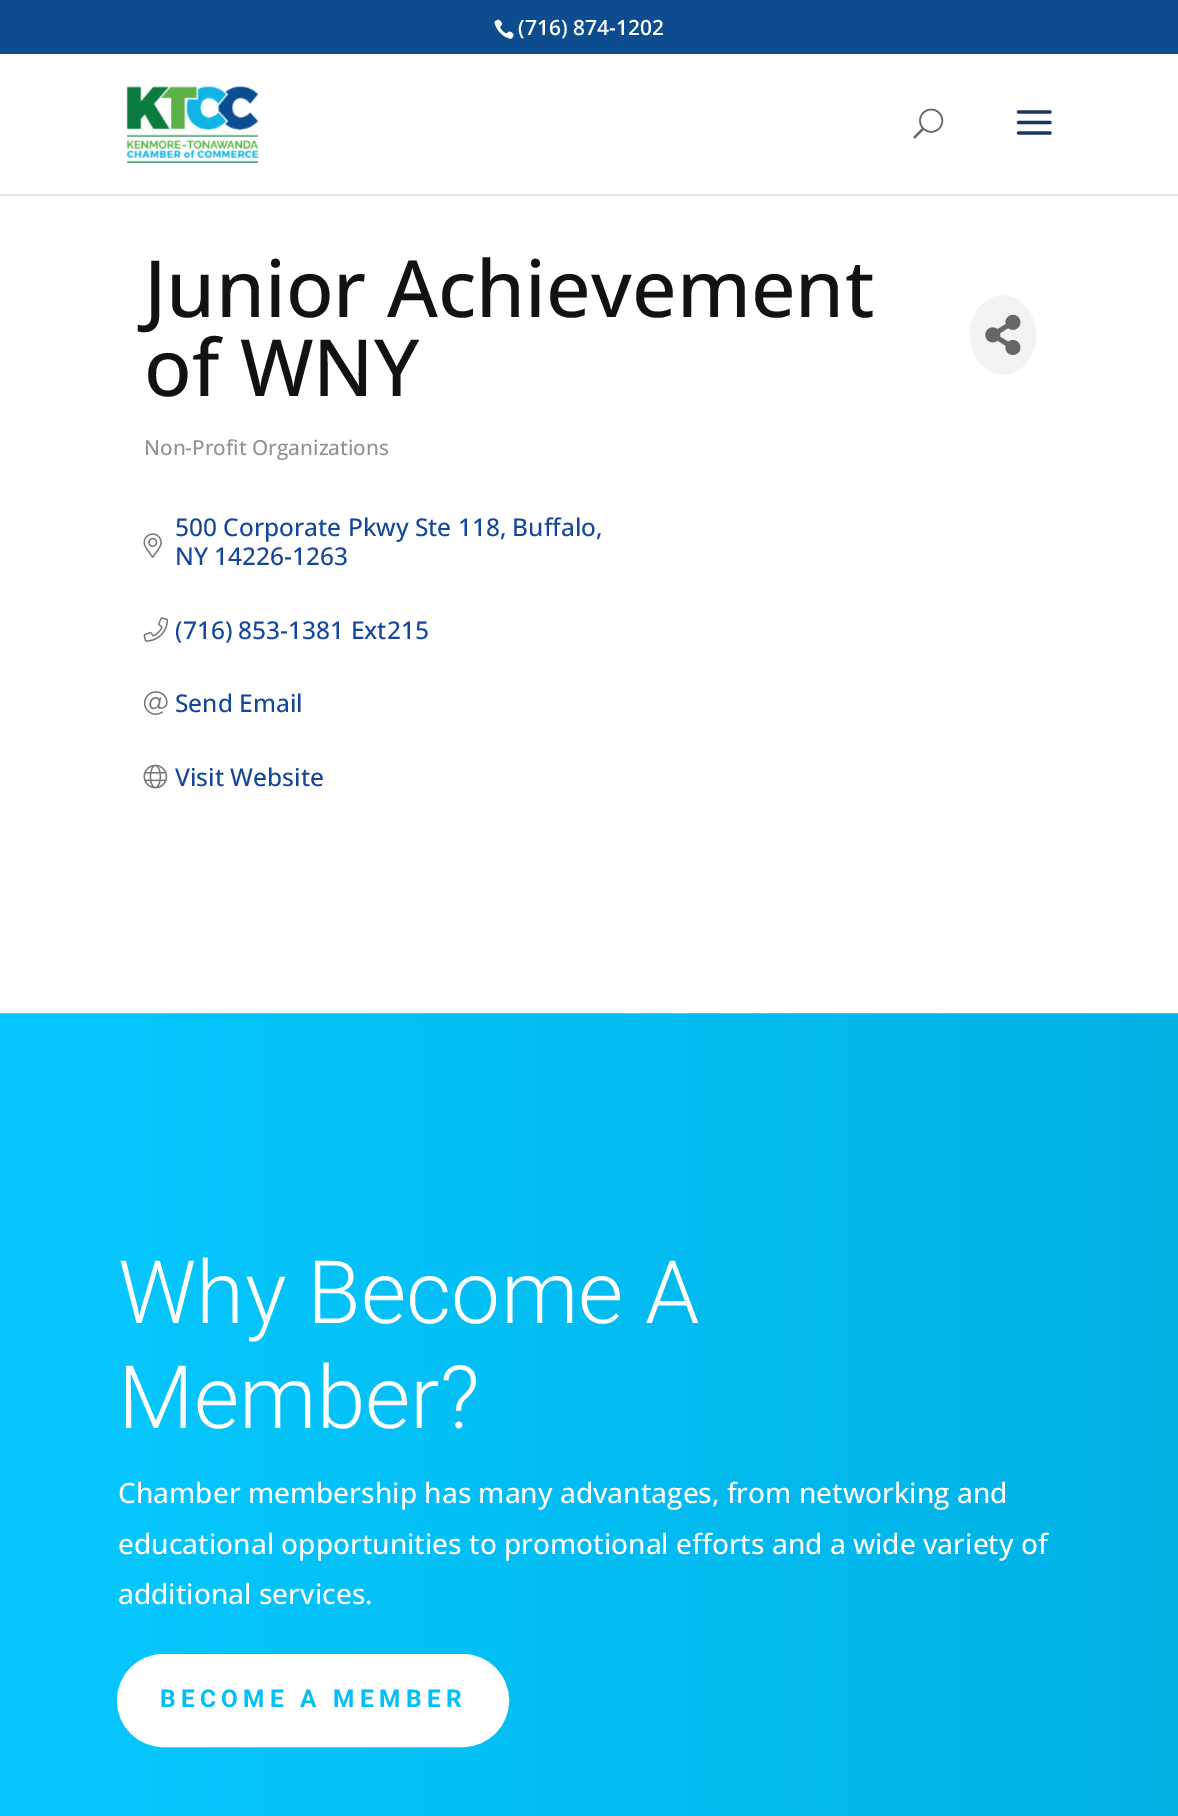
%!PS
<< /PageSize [1178 1816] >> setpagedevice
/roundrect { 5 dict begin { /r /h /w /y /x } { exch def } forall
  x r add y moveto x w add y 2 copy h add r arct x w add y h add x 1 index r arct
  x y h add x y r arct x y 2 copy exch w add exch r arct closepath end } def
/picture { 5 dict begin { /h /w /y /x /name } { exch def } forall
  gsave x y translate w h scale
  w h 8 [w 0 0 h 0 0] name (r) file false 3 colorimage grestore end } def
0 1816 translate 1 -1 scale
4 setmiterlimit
1 setgray
0 0 1178 1816 rectfill
0.051 0.302 0.561 setrgbcolor
0 0 1178 54 rectfill
(img1.rgb) 494 19 20 20 picture
/OpenSans-SemiBold [21 0 0 -21 0 0] selectfont
1 setgray
518 35 moveto (\(716\) 874-1202) show
0.902 setgray
newpath 0 194 moveto 0 196 lineto 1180 196 lineto 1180 56 lineto 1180 194 lineto closepath fill
(img2.rgb) 126 85 133 78 picture
(img3.rgb) 913 108 31 31 picture
(img4.rgb) 1016 110 36 25 picture
/OpenSans-Medium [78.75 0 0 -78.75 0 0] selectfont
0.071 0.071 0.078 setrgbcolor
144 317 moveto (Junior Achievement) show
144 396 moveto (of WNY) show
0.953 setgray
newpath 1003 295.5 moveto 1021 295.5 1036 313 1036 335 curveto 1036 357 1021 374.5 1003 374.5 curveto 985 374.5 970 357 970 335 curveto 970 313 985 295.5 1003 295.5 curveto closepath fill
(img5.rgb) 985 314 36 41 picture
/OpenSans-Medium [20.75 0 0 -20.75 0 0] selectfont
0.573 setgray
144 455 moveto (Non-Profit Organizations) show
/OpenSans-Medium [24.5 0 0 -24.5 0 0] selectfont
0.078 0.275 0.612 setrgbcolor
175 536 moveto (500 Corporate Pkwy Ste 118, Buffalo,) show
(img6.rgb) 143 533 19 25 picture
175 565 moveto (NY 14226-1263) show
(img7.rgb) 143 617 25 25 picture
175 639 moveto (\(716\) 853-1381 Ext215) show
(img8.rgb) 143 691 25 24 picture
175 712 moveto (Send Email) show
(img9.rgb) 143 764 25 25 picture
175 786 moveto (Visit Website) show
(img10.rgb) 0 1013 1178 803 picture
/Roboto-Light [87.5 0 0 -87.5 0 0] selectfont
1 setgray
118 1323 moveto (Why Become A) show
118 1428 moveto (Member?) show
/OpenSans-Medium [28 0 0 -28 0 0] selectfont
118 1503 moveto (Chamber membership has many advantages, from networking and) show
118 1554 moveto (educational opportunities to promotional efforts and a wide variety of) show
118 1604 moveto (additional services.) show
126 1663 374 75 37.5 roundrect gsave fill grestore
18 setlinewidth
stroke
/Roboto-Bold [24.5 0 0 -24.5 0 0] selectfont
0.016 0.749 0.957 setrgbcolor
160 1707 moveto 5.25 0 (BECOME A MEMBER) ashow
showpage
